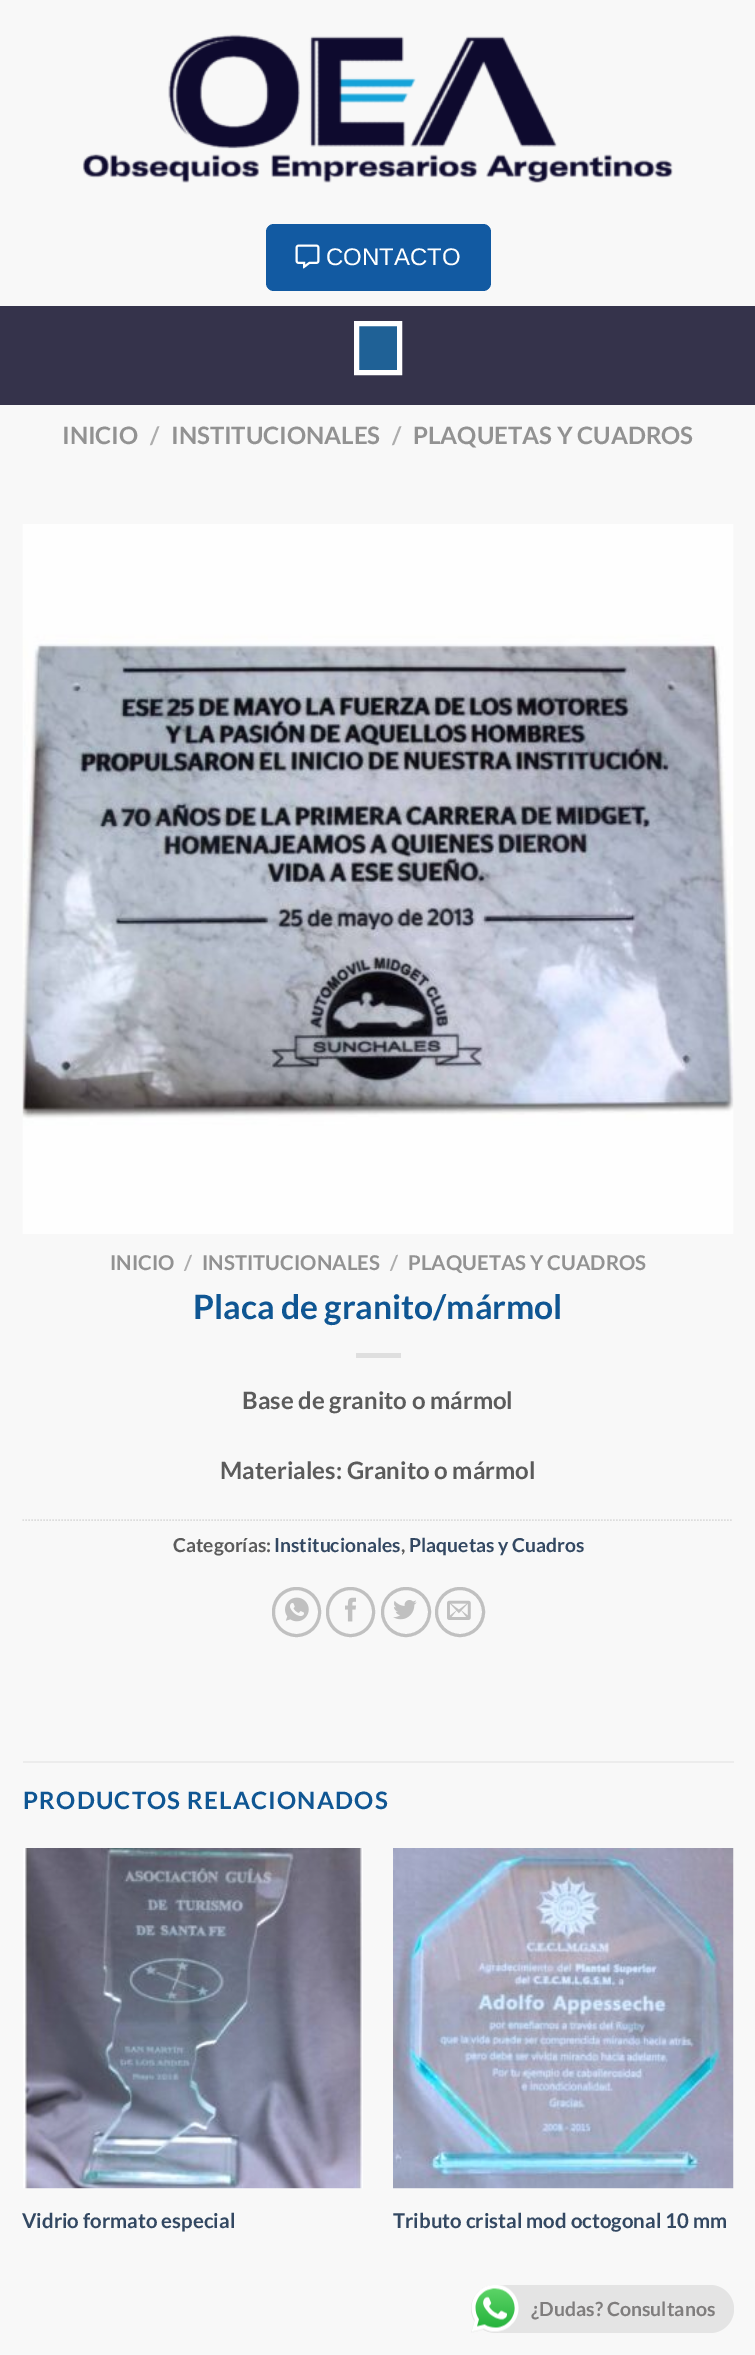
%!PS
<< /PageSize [755 2355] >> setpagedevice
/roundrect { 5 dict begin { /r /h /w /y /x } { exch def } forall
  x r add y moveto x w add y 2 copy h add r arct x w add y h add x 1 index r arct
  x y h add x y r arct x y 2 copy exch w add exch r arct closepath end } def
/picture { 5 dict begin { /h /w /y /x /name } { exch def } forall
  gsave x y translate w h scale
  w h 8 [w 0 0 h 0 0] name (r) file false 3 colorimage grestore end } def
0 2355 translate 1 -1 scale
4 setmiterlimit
0.973 setgray
0 0 755 2355 rectfill
(img1.rgb) 82 34 591 149 picture
0.071 0.353 0.635 setrgbcolor
266 224 225 67 8 roundrect fill
(img2.rgb) 295 244 25 25 picture
/LiberationSans-Regular [24 0 0 -24 0 0] selectfont
1 setgray
326 265 moveto (CONTACTO) show
0.208 0.2 0.294 setrgbcolor
0 306 755 99 rectfill
0.122 0.38 0.588 setrgbcolor
newpath 356.5 323.5 moveto 399.5 323.5 lineto 399.5 372.5 lineto 356.5 372.5 lineto closepath gsave fill grestore
1 setgray
5 setlinewidth
stroke
/Lato-Bold [24 0 0 -24 0 0] selectfont
0.573 setgray
62 444 moveto (INICIO) show
0.678 setgray
150 444 moveto (/) show
0.573 setgray
171 444 moveto (INSTITUCIONALES) show
0.678 setgray
392 444 moveto (/) show
0.573 setgray
413 444 moveto (PLAQUETAS Y CUADROS) show
(img3.rgb) 22 524 712 710 picture
/Lato-Bold [20.4 0 0 -20.4 0 0] selectfont
110 1270 moveto (INICIO) show
0.678 setgray
184 1270 moveto (/) show
0.573 setgray
202 1270 moveto (INSTITUCIONALES) show
0.678 setgray
390 1270 moveto (/) show
0.573 setgray
408 1270 moveto (PLAQUETAS Y CUADROS) show
/Lato-Bold [33.6 0 0 -33.6 0 0] selectfont
0.059 0.337 0.576 setrgbcolor
193 1319 moveto (Placa de granito/mármol) show
0.875 setgray
356 1353 45 5 rectfill
/Lato-Bold [24 0 0 -24 0 0] selectfont
0.357 setgray
242 1409 moveto (Base de granito o mármol) show
220 1479 moveto (Materiales: Granito o mármol) show
0.867 setgray
1.5 setlinewidth
[1.5 1.5] 0 setdash
newpath 22.5 1520 moveto 733.5 1520 lineto stroke
/Lato-Bold [19.25 0 0 -19.25 0 0] selectfont
0.357 setgray
173 1552 moveto (Categorías:) show
0.2 0.282 0.384 setrgbcolor
274 1552 moveto (Institucionales) show
0.357 setgray
401 1552 moveto (,) show
0.2 0.282 0.384 setrgbcolor
409 1552 moveto (Plaquetas y Cuadros) show
0.753 setgray
3 setlinewidth
[] 0 setdash
273.5 1588.5 46 47 23 roundrect stroke
(img4.rgb) 285 1597 24 25 picture
327.5 1588.5 46 47 23 roundrect stroke
(img5.rgb) 345 1597 11 25 picture
newpath 406 1612 23.5 0 360 arc closepath stroke
(img6.rgb) 393 1600 24 20 picture
newpath 460 1612 23.5 0 360 arc closepath stroke
(img7.rgb) 447 1600 24 20 picture
0.925 setgray
23 1761 711 2 rectfill
/Lato-Bold [24 0 0 -24 0 0] selectfont
0.059 0.337 0.576 setrgbcolor
23 1809 moveto 1.2 0 (PRODUCTOS RELACIONADOS) ashow
(img8.rgb) 23 1848 340 341 picture
/Lato-Bold [20.4 0 0 -20.4 0 0] selectfont
0.2 0.282 0.384 setrgbcolor
22 2228 moveto (Vidrio formato especial) show
(img9.rgb) 393 1848 341 341 picture
393 2228 moveto (Tributo cristal mod octogonal 10 mm) show
0.894 setgray
471 2285 263 48 24 roundrect fill
(img10.rgb) 471 2285 48 48 picture
/Lato-Bold [19.5 0 0 -19.5 0 0] selectfont
0.498 0.49 0.49 setrgbcolor
531 2316 moveto (¿Dudas? Consultanos) show
showpage
